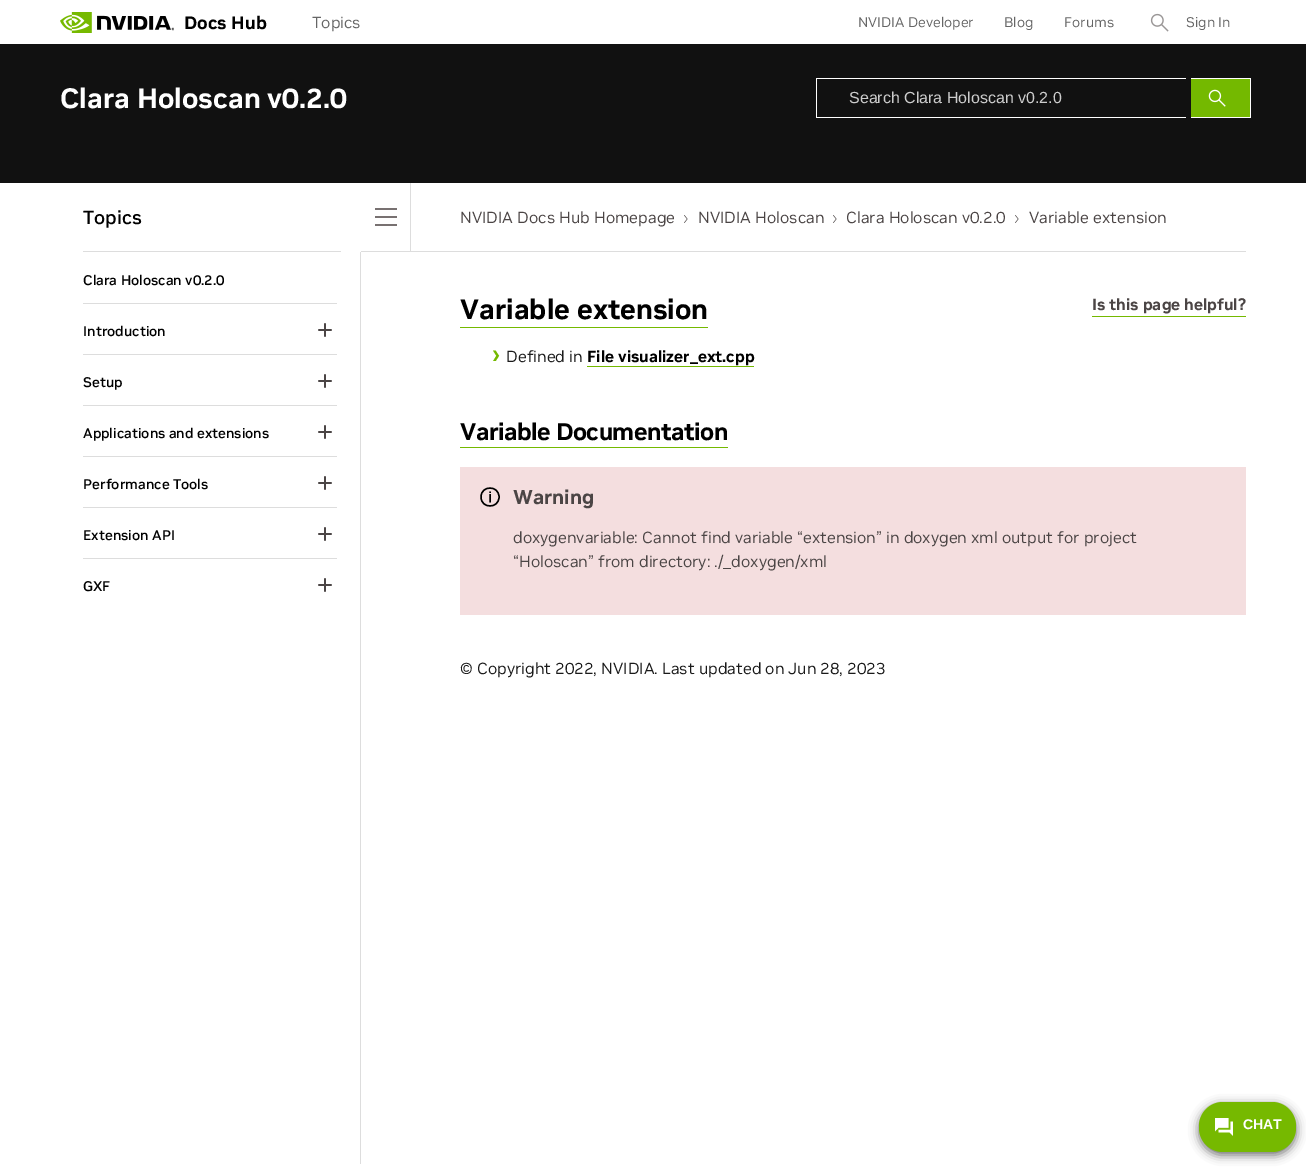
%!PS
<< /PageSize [1306 1175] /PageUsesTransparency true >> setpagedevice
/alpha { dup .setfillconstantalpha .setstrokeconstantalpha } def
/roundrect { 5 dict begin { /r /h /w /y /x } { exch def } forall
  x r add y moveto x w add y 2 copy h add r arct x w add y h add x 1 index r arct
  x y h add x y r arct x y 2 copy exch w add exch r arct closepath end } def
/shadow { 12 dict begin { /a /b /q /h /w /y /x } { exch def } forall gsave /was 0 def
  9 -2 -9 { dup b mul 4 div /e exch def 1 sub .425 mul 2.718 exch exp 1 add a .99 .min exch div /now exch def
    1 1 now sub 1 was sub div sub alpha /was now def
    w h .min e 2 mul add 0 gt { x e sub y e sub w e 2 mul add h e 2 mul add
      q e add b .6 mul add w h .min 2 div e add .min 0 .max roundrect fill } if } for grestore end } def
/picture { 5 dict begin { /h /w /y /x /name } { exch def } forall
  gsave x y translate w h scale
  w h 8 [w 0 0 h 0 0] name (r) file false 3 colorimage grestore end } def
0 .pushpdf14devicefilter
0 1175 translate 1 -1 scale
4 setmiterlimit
1 setgray
0 0 1306 1175 rectfill
(img1.rgb) 60 12 114 21 picture
/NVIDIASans-Bold [18 0 0 -18 0 0] selectfont
0 setgray
184 29 moveto (Docs Hub) show
/NVIDIASans-Regular [16 0 0 -16 0 0] selectfont
0.4 setgray
312 28 moveto (Topics) show
/NVIDIASans-Regular [14 0 0 -14 0 0] selectfont
858 27 moveto (NVIDIA Developer) show
1004 27 moveto (Blog) show
1064 27 moveto (Forums) show
(img2.rgb) 1150 13 19 19 picture
1186 27 moveto (Sign In) show
0.067 setgray
0 44 1306 139 rectfill
/NVIDIASans-Bold [28 0 0 -28 0 0] selectfont
1 setgray
60 108 moveto (Clara Holoscan v0.2.0) show
816 78 370 1 rectfill
816 117 370 1 rectfill
816 78 1 40 rectfill
/LiberationSans-Regular [16 0 0 -16 0 0] selectfont
0.8 setgray
849 103 moveto (Search Clara Holoscan v0.2.0) show
0.455 0.725 0 setrgbcolor
1191 79 59 38 rectfill
1 setgray
1191 78 60 1 rectfill
1250 78 1 40 rectfill
1191 117 60 1 rectfill
(img3.rgb) 1208 89 18 18 picture
/NVIDIASans-Medium [19 0 0 -19 0 0] selectfont
0 setgray
83 224 moveto (Topics) show
0.867 setgray
83 251 258 1 rectfill
410 183 1 69 rectfill
361 251 50 1 rectfill
0.471 0.443 0.443 setrgbcolor
375 208 22 2 rectfill
375 216 22 2 rectfill
375 224 22 2 rectfill
0.867 setgray
360 252 1 912 rectfill
/NVIDIASans-Medium [14 0 0 -14 0 0] selectfont
0 setgray
83 285 moveto (Clara Holoscan v0.2.0) show
0.867 setgray
83 303 254 1 rectfill
0 setgray
83 336 moveto (Introduction) show
(img4.rgb) 318 323 14 14 picture
0.867 setgray
83 354 254 1 rectfill
0 setgray
83 387 moveto (Setup) show
(img4.rgb) 318 374 14 14 picture
0.867 setgray
83 405 254 1 rectfill
0 setgray
83 438 moveto (Applications and extensions) show
(img4.rgb) 318 425 14 14 picture
0.867 setgray
83 456 254 1 rectfill
0 setgray
83 489 moveto (Performance Tools) show
(img4.rgb) 318 476 14 14 picture
0.867 setgray
83 507 254 1 rectfill
0 setgray
83 540 moveto (Extension API) show
(img4.rgb) 318 527 14 14 picture
0.867 setgray
83 558 254 1 rectfill
0 setgray
83 591 moveto (GXF) show
(img4.rgb) 318 578 14 14 picture
/NVIDIASans-Regular [16 0 0 -16 0 0] selectfont
0.294 0.271 0.271 setrgbcolor
460 223 moveto (NVIDIA Docs Hub Homepage) show
(img5.rgb) 684 215 4 8 picture
698 223 moveto (NVIDIA Holoscan) show
(img5.rgb) 833 215 4 8 picture
846 223 moveto (Clara Holoscan v0.2.0) show
(img5.rgb) 1015 215 4 8 picture
1029 223 moveto (Variable extension) show
0.867 setgray
411 251 835 1 rectfill
/NVIDIASans-Bold [28 0 0 -28 0 0] selectfont
0 setgray
460 319 moveto (Variable extension) show
0.455 0.725 0 setrgbcolor
460 327 248 1 rectfill
1092 316 154 1 rectfill
/NVIDIASans-Bold [16 0 0 -16 0 0] selectfont
0.294 0.271 0.271 setrgbcolor
1092 310 moveto (Is this page helpful?) show
/NVIDIASans-Medium [24 0 0 -24 0 0] selectfont
0.455 0.725 0 setrgbcolor
492 362 moveto (›) show
/NVIDIASans-Regular [16 0 0 -16 0 0] selectfont
0.102 setgray
506 362 moveto (Defined in) show
/NVIDIASans-Bold [16 0 0 -16 0 0] selectfont
0 setgray
587 362 moveto (File visualizer_ext.cpp) show
0.455 0.725 0 setrgbcolor
587 366 167 1 rectfill
/NVIDIASans-Bold [24 0 0 -24 0 0] selectfont
0 setgray
460 440 moveto -0.5 0 (Variable Documentation) ashow
0.455 0.725 0 setrgbcolor
460 447 268 1 rectfill
0.957 0.871 0.875 setrgbcolor
460 467 786 148 rectfill
0 setgray
1.4 setlinewidth
newpath 490 493 moveto 490 491.5 lineto 490 502.5 moveto 490 494 lineto 499 497 moveto 499 509 481 509 481 497 curveto 481 485 499 485 499 497 curveto closepath stroke
/NVIDIASans-Bold [20 0 0 -20 0 0] selectfont
0.294 0.271 0.271 setrgbcolor
513 504 moveto (Warning) show
/NVIDIASans-Regular [16 0 0 -16 0 0] selectfont
513 543 moveto (doxygenvariable: Cannot find variable “extension” in doxygen xml output for project) show
513 567 moveto (“Holoscan” from directory: ./_doxygen/xml) show
0.102 setgray
460 674 moveto (© Copyright 2022, NVIDIA. Last updated on Jun 28, 2023) show
0.4 setgray
1199 1105 97 50 24 5 1 shadow
0.463 0.725 0 setrgbcolor
1199 1102 97 50 24 roundrect fill
(img6.rgb) 1215 1118 18 18 picture
/LiberationSans-Bold [14 0 0 -14 0 0] selectfont
1 setgray
1243 1129 moveto (CHAT) show
.poppdf14devicefilter showpage
